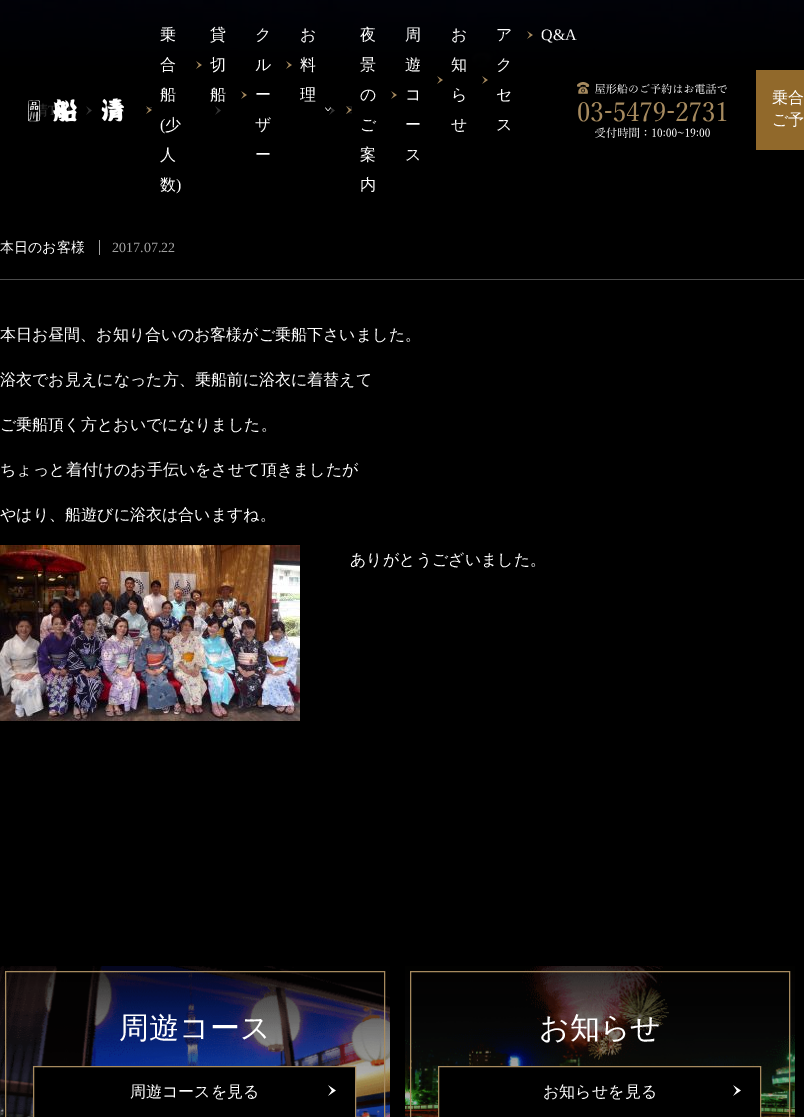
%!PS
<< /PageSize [804 1117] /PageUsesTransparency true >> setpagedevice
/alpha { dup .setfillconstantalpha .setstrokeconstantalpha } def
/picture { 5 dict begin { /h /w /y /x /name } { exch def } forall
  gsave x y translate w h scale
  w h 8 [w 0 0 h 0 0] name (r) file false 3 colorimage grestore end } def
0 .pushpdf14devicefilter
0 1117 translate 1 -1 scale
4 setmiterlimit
1 setgray
0 0 804 1117 rectfill
(img1.rgb) 0 0 804 70 picture
0 setgray
0 70 804 1047 rectfill
(img11.rgb) 86 106 6 9 picture
(img12.rgb) 215 106 6 9 picture
(img11.rgb) 329 106 6 9 picture
0.8 alpha
0 0 804 115 rectfill
1 alpha
(img2.rgb) 28 98 96 24 picture
/WenQuanYiZenHei-Medium [16 0 0 -16 0 0] selectfont
1 setgray
160 40 moveto (乗) show
160 70 moveto (合) show
160 100 moveto (船) show
(img3.rgb) 146 106 6 8 picture
/LiberationSerif-Regular [16 0 0 -16 0 0] selectfont
160 130 moveto (\() show
/WenQuanYiZenHei-Medium [16 0 0 -16 0 0] selectfont
165 130 moveto (少) show
160 160 moveto (人) show
160 190 moveto (数) show
/LiberationSerif-Regular [16 0 0 -16 0 0] selectfont
176 190 moveto (\)) show
/WenQuanYiZenHei-Medium [16 0 0 -16 0 0] selectfont
210 40 moveto (貸) show
(img4.rgb) 196 61 6 8 picture
210 70 moveto (切) show
210 100 moveto (船) show
255 40 moveto (ク) show
255 70 moveto (ル) show
(img5.rgb) 241 91 6 8 picture
255 100 moveto (ー) show
255 130 moveto (ザ) show
255 160 moveto (ー) show
300 40 moveto (お) show
(img6.rgb) 286 61 6 8 picture
300 70 moveto (料) show
300 100 moveto (理) show
(img7.rgb) 325 107 6 4 picture
360 40 moveto (夜) show
360 70 moveto (景) show
360 100 moveto (の) show
(img8.rgb) 346 106 6 8 picture
360 130 moveto (ご) show
360 160 moveto (案) show
360 190 moveto (内) show
405 40 moveto (周) show
405 70 moveto (遊) show
(img5.rgb) 391 91 6 8 picture
405 100 moveto (コ) show
405 130 moveto (ー) show
405 160 moveto (ス) show
451 40 moveto (お) show
451 70 moveto (知) show
(img5.rgb) 437 76 6 8 picture
451 100 moveto (ら) show
451 130 moveto (せ) show
496 40 moveto (ア) show
496 70 moveto (ク) show
(img5.rgb) 482 76 6 8 picture
496 100 moveto (セ) show
496 130 moveto (ス) show
(img9.rgb) 527 31 6 8 picture
/LiberationSerif-Regular [16 0 0 -16 0 0] selectfont
541 40 moveto (Q&A) show
(img10.rgb) 577 82 150 56 picture
0.569 0.412 0.169 setrgbcolor
756 70 48 80 rectfill
/WenQuanYiZenHei-Medium [16 0 0 -16 0 0] selectfont
1 setgray
772 103 moveto (乗合) show
772 125 moveto (ご予) show
0.294 setgray
0 279 804 1 rectfill
/WenQuanYiZenHei-Medium [14 0 0 -14 0 0] selectfont
1 setgray
0 252 moveto (本日のお客様) show
0.635 setgray
99 240 1 15 rectfill
/LiberationSerif-Regular [14 0 0 -14 0 0] selectfont
112 252 moveto (2017.07.22) show
/WenQuanYiZenHei-Medium [16 0 0 -16 0 0] selectfont
1 setgray
0 340 moveto (本日お昼間、お知り合いのお客様がご乗船下さいました。) show
0 385 moveto (浴衣でお見えになった方、乗船前に浴衣に着替えて) show
0 430 moveto (ご乗船頂く方とおいでになりました。) show
0 475 moveto (ちょっと着付けのお手伝いをさせて頂きましたが) show
0 520 moveto (やはり、船遊びに浴衣は合いますね。) show
(img13.rgb) 0 545 300 176 picture
350 565 moveto (ありがとうございました。) show
(img14.rgb) 0 966 390 151 picture
0 setgray
newpath 33.5 1066.5 moveto 355.5 1066.5 lineto 355.5 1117.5 lineto 33.5 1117.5 lineto closepath gsave fill grestore
0.651 0.541 0.373 setrgbcolor
stroke
5.5 971.5 379 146 rectstroke
/WenQuanYiZenHei-Medium [30 0 0 -30 0 0] selectfont
1 setgray
119 1038 moveto (周遊コース) show
/WenQuanYiZenHei-Medium [16 0 0 -16 0 0] selectfont
130 1097 moveto (周遊コースを見る) show
(img15.rgb) 328 1085 8 11 picture
(img16.rgb) 405 966 390 151 picture
0 setgray
newpath 438.5 1066.5 moveto 760.5 1066.5 lineto 760.5 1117.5 lineto 438.5 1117.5 lineto closepath gsave fill grestore
0.651 0.541 0.373 setrgbcolor
stroke
410.5 971.5 379 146 rectstroke
/WenQuanYiZenHei-Medium [30 0 0 -30 0 0] selectfont
1 setgray
539 1038 moveto (お知らせ) show
/WenQuanYiZenHei-Medium [16 0 0 -16 0 0] selectfont
543 1097 moveto (お知らせを見る) show
(img17.rgb) 733 1085 8 11 picture
.poppdf14devicefilter showpage
